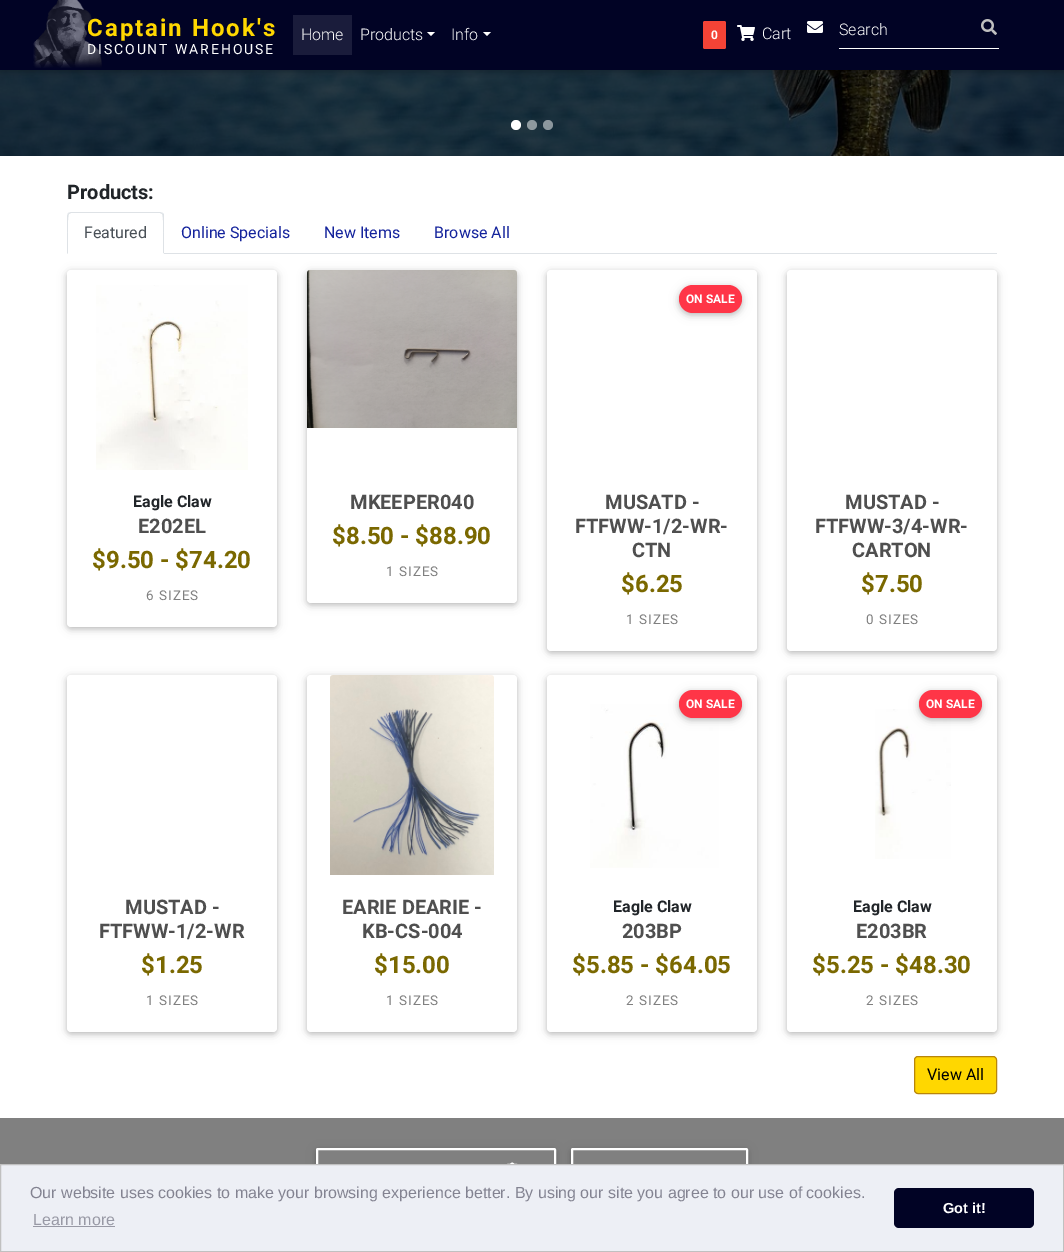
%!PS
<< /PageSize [1064 1252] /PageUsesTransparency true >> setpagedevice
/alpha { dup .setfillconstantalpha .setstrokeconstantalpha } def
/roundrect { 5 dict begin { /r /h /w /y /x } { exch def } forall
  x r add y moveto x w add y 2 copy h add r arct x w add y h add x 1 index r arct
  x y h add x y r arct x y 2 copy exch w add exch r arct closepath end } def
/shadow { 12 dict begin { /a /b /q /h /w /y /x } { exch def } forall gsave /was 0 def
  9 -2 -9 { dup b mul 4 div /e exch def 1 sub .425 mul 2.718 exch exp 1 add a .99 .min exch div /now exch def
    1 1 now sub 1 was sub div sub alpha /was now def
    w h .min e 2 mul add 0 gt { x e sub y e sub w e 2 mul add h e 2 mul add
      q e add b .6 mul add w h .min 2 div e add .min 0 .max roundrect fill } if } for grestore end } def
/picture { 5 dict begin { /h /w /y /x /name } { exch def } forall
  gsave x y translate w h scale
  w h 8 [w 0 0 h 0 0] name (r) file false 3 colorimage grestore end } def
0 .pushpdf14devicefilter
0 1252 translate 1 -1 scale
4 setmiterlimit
1 setgray
0 0 1064 1252 rectfill
(img5.rgb) 0 70 1064 86 picture
0 setgray
0 2 1064 70 0 5 0.12 shadow
0 2 1064 70 0 2.5 0.16 shadow
0.004 0.012 0.145 setrgbcolor
0 0 1064 70 rectfill
(img1.rgb) 33 0 69 68 picture
/Roboto-Bold [24 0 0 -24 0 0] selectfont
1 0.843 0 setrgbcolor
87 36 moveto 2 0 (Captain Hook's) ashow
/Roboto-Regular [14 0 0 -14 0 0] selectfont
1 setgray
87 54 moveto 1.9 0 (DISCOUNT WAREHOUSE) ashow
0.102 0.11 0.231 setrgbcolor
293 15 59 40 rectfill
/Roboto-Light [16 0 0 -16 0 0] selectfont
1 setgray
301 40 moveto (Home) show
360 40 moveto (Products) show
newpath 427 32 moveto 435 32 lineto 431 36 lineto closepath fill
451 40 moveto (Info) show
newpath 483 32 moveto 491 32 lineto 487 36 lineto closepath fill
0.957 0.263 0.212 setrgbcolor
703 21 23 28 2 roundrect fill
/Roboto-Bold [12 0 0 -12 0 0] selectfont
1 setgray
711 39 moveto (0) show
(img2.rgb) 737 25 18 16 picture
/Roboto-Light [16 0 0 -16 0 0] selectfont
762 39 moveto (Cart) show
(img3.rgb) 807 21 16 12 picture
839 48 160 1 rectfill
839 35 moveto (Search) show
(img4.rgb) 981 19 16 16 picture
newpath 516 125 5 0 360 arc closepath fill
0.5 alpha
newpath 532 125 5 0 360 arc closepath fill
newpath 548 125 5 0 360 arc closepath fill
/Roboto-Bold [20 0 0 -20 0 0] selectfont
1 alpha
0.129 0.145 0.161 setrgbcolor
67 199 moveto (Products:) show
0.871 0.886 0.902 setrgbcolor
164 253 833 1 rectfill
newpath 71 212 moveto 68 213 lineto 69 214 lineto 71 213 lineto 160 213 lineto 162 214 lineto 163 213 lineto 160 212 lineto closepath fill
newpath 164 254 moveto 164 216 lineto 164 215 164 214 163 213 curveto 162 214 lineto 164 216 163 248 163 253 curveto closepath fill
1 setgray
newpath 164 254 moveto 163 253 lineto 68 253 lineto 67 254 lineto closepath fill
0.871 0.886 0.902 setrgbcolor
newpath 67 254 moveto 68 253 lineto 68 248 67 216 69 214 curveto 68 213 lineto 67 216 lineto closepath fill
/Roboto-Regular [16 0 0 -16 0 0] selectfont
0.286 0.314 0.341 setrgbcolor
84 238 moveto (Featured) show
0.078 0.137 0.612 setrgbcolor
181 238 moveto (Online Specials) show
324 238 moveto (New Items) show
434 238 moveto (Browse All) show
0 setgray
67 272 210 357 4 5 0.12 shadow
67 272 210 357 4 2.5 0.16 shadow
1 setgray
67 270 210 357 4 roundrect fill
(img6.rgb) 96 285 152 185 picture
/Roboto-Bold [16 0 0 -16 0 0] selectfont
0.129 0.145 0.161 setrgbcolor
133 507 moveto (Eagle Claw) show
/Roboto-Bold [20 0 0 -20 0 0] selectfont
0.31 setgray
138 533 moveto (E202EL) show
/Roboto-Bold [24 0 0 -24 0 0] selectfont
0.478 0.408 0 setrgbcolor
92 568 moveto ($9.50 - $74.20) show
/Roboto-Regular [13.5 0 0 -13.5 0 0] selectfont
0.502 setgray
146 600 moveto 1 0 (6 SIZES) ashow
0 setgray
307 272 210 333 4 5 0.12 shadow
307 272 210 333 4 2.5 0.16 shadow
1 setgray
307 270 210 333 4 roundrect fill
(img7.rgb) 307 270 210 158 picture
/Roboto-Bold [20 0 0 -20 0 0] selectfont
0.31 setgray
350 509 moveto (MKEEPER040) show
/Roboto-Bold [24 0 0 -24 0 0] selectfont
0.478 0.408 0 setrgbcolor
332 544 moveto ($8.50 - $88.90) show
/Roboto-Regular [13.5 0 0 -13.5 0 0] selectfont
0.502 setgray
386 576 moveto 1 0 (1 SIZES) ashow
0 setgray
547 272 210 381 4 5 0.12 shadow
547 272 210 381 4 2.5 0.16 shadow
1 setgray
547 270 210 381 4 roundrect fill
0 setgray
679 287 63 28 14 5 0.12 shadow
679 287 63 28 14 2.5 0.16 shadow
1 0.208 0.278 setrgbcolor
679 285 63 28 14 roundrect fill
/Roboto-Bold [12 0 0 -12 0 0] selectfont
1 setgray
686 303 moveto (ON SALE) show
/Roboto-Bold [20 0 0 -20 0 0] selectfont
0.31 setgray
605 509 moveto (MUSATD -) show
575 533 moveto (FTFWW-1/2-WR-) show
632 557 moveto (CTN) show
/Roboto-Bold [24 0 0 -24 0 0] selectfont
0.478 0.408 0 setrgbcolor
621 592 moveto ($6.25) show
/Roboto-Regular [13.5 0 0 -13.5 0 0] selectfont
0.502 setgray
626 624 moveto 1 0 (1 SIZES) ashow
0 setgray
787 272 210 381 4 5 0.12 shadow
787 272 210 381 4 2.5 0.16 shadow
1 setgray
787 270 210 381 4 roundrect fill
/Roboto-Bold [20 0 0 -20 0 0] selectfont
0.31 setgray
845 509 moveto (MUSTAD -) show
815 533 moveto (FTFWW-3/4-WR-) show
852 557 moveto (CARTON) show
/Roboto-Bold [24 0 0 -24 0 0] selectfont
0.478 0.408 0 setrgbcolor
861 592 moveto ($7.50) show
/Roboto-Regular [13.5 0 0 -13.5 0 0] selectfont
0.502 setgray
866 624 moveto 1 0 (0 SIZES) ashow
0 setgray
67 677 210 357 4 5 0.12 shadow
67 677 210 357 4 2.5 0.16 shadow
1 setgray
67 675 210 357 4 roundrect fill
/Roboto-Bold [20 0 0 -20 0 0] selectfont
0.31 setgray
125 914 moveto (MUSTAD -) show
99 938 moveto (FTFWW-1/2-WR) show
/Roboto-Bold [24 0 0 -24 0 0] selectfont
0.478 0.408 0 setrgbcolor
141 973 moveto ($1.25) show
/Roboto-Regular [13.5 0 0 -13.5 0 0] selectfont
0.502 setgray
146 1005 moveto 1 0 (1 SIZES) ashow
0 setgray
307 677 210 357 4 5 0.12 shadow
307 677 210 357 4 2.5 0.16 shadow
1 setgray
307 675 210 357 4 roundrect fill
(img8.rgb) 330 675 164 200 picture
/Roboto-Bold [20 0 0 -20 0 0] selectfont
0.31 setgray
342 914 moveto (EARIE DEARIE -) show
362 938 moveto (KB-CS-004) show
/Roboto-Bold [24 0 0 -24 0 0] selectfont
0.478 0.408 0 setrgbcolor
374 973 moveto ($15.00) show
/Roboto-Regular [13.5 0 0 -13.5 0 0] selectfont
0.502 setgray
386 1005 moveto 1 0 (1 SIZES) ashow
0 setgray
547 677 210 357 4 5 0.12 shadow
547 677 210 357 4 2.5 0.16 shadow
1 setgray
547 675 210 357 4 roundrect fill
(img9.rgb) 590 704 129 164 picture
0 setgray
679 692 63 28 14 5 0.12 shadow
679 692 63 28 14 2.5 0.16 shadow
1 0.208 0.278 setrgbcolor
679 690 63 28 14 roundrect fill
/Roboto-Bold [12 0 0 -12 0 0] selectfont
1 setgray
686 708 moveto (ON SALE) show
/Roboto-Bold [16 0 0 -16 0 0] selectfont
0.129 0.145 0.161 setrgbcolor
613 912 moveto (Eagle Claw) show
/Roboto-Bold [20 0 0 -20 0 0] selectfont
0.31 setgray
622 938 moveto (203BP) show
/Roboto-Bold [24 0 0 -24 0 0] selectfont
0.478 0.408 0 setrgbcolor
572 973 moveto ($5.85 - $64.05) show
/Roboto-Regular [13.5 0 0 -13.5 0 0] selectfont
0.502 setgray
626 1005 moveto 1 0 (2 SIZES) ashow
0 setgray
787 677 210 357 4 5 0.12 shadow
787 677 210 357 4 2.5 0.16 shadow
1 setgray
787 675 210 357 4 roundrect fill
(img10.rgb) 875 709 76 150 picture
0 setgray
919 692 63 28 14 5 0.12 shadow
919 692 63 28 14 2.5 0.16 shadow
1 0.208 0.278 setrgbcolor
919 690 63 28 14 roundrect fill
/Roboto-Bold [12 0 0 -12 0 0] selectfont
1 setgray
926 708 moveto (ON SALE) show
/Roboto-Bold [16 0 0 -16 0 0] selectfont
0.129 0.145 0.161 setrgbcolor
853 912 moveto (Eagle Claw) show
/Roboto-Bold [20 0 0 -20 0 0] selectfont
0.31 setgray
856 938 moveto (E203BR) show
/Roboto-Bold [24 0 0 -24 0 0] selectfont
0.478 0.408 0 setrgbcolor
812 973 moveto ($5.25 - $48.30) show
/Roboto-Regular [13.5 0 0 -13.5 0 0] selectfont
0.502 setgray
866 1005 moveto 1 0 (2 SIZES) ashow
1 0.843 0 setrgbcolor
914.5 1056.5 82 37 3.5 roundrect gsave fill grestore
0.722 0.525 0.043 setrgbcolor
stroke
/Roboto-Regular [16 0 0 -16 0 0] selectfont
0 setgray
927 1080 moveto (View All) show
0.502 setgray
0 1118 1064 46 rectfill
gsave
newpath 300 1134 moveto 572 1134 lineto 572 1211 lineto 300 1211 lineto closepath 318 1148 moveto 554 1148 lineto 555 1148 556 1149 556 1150 curveto 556 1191 lineto 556 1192 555 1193 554 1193 curveto 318 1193 lineto 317 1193 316 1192 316 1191 curveto 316 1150 lineto 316 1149 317 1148 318 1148 curveto closepath eoclip newpath
0 setgray
316 1150 240 45 2 5 0.12 shadow
grestore
gsave
newpath 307 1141 moveto 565 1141 lineto 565 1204 lineto 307 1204 lineto closepath 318 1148 moveto 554 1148 lineto 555 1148 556 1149 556 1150 curveto 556 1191 lineto 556 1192 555 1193 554 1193 curveto 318 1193 lineto 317 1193 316 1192 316 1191 curveto 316 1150 lineto 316 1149 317 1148 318 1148 curveto closepath eoclip newpath
0 setgray
316 1150 240 45 2 2.5 0.16 shadow
grestore
1 setgray
2 setlinewidth
317 1149 238 43 1 roundrect stroke
(img11.rgb) 507 1162 11 2 picture
gsave
newpath 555 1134 moveto 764 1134 lineto 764 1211 lineto 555 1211 lineto closepath 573 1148 moveto 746 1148 lineto 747 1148 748 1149 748 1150 curveto 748 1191 lineto 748 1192 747 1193 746 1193 curveto 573 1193 lineto 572 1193 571 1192 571 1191 curveto 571 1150 lineto 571 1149 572 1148 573 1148 curveto closepath eoclip newpath
0 setgray
571 1150 177 45 2 5 0.12 shadow
grestore
gsave
newpath 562 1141 moveto 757 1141 lineto 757 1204 lineto 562 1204 lineto closepath 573 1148 moveto 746 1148 lineto 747 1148 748 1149 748 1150 curveto 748 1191 lineto 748 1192 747 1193 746 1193 curveto 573 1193 lineto 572 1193 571 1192 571 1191 curveto 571 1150 lineto 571 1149 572 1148 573 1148 curveto closepath eoclip newpath
0 setgray
571 1150 177 45 2 2.5 0.16 shadow
grestore
572 1149 175 43 1 roundrect stroke
0.929 0.937 0.961 setrgbcolor
newpath 0.5 1164.5 moveto 1063.5 1164.5 lineto 1063.5 1251.5 lineto 0.5 1251.5 lineto closepath gsave fill grestore
0.753 setgray
1 setlinewidth
stroke
/LiberationSans-Regular [16 0 0 -16 0 0] selectfont
0.514 0.514 0.569 setrgbcolor
30 1198 moveto (Our website uses cookies to make your browsing experience better. By using our site you agree to our use of cookies.) show
0.596 0.6 0.647 setrgbcolor
33 1225 moveto (Learn more) show
33 1226 82 1 rectfill
0.004 0.012 0.145 setrgbcolor
894 1188 140 40 5 roundrect fill
/LiberationSans-Bold [14.5 0 0 -14.5 0 0] selectfont
1 setgray
943 1213 moveto (Got it!) show
.poppdf14devicefilter showpage
